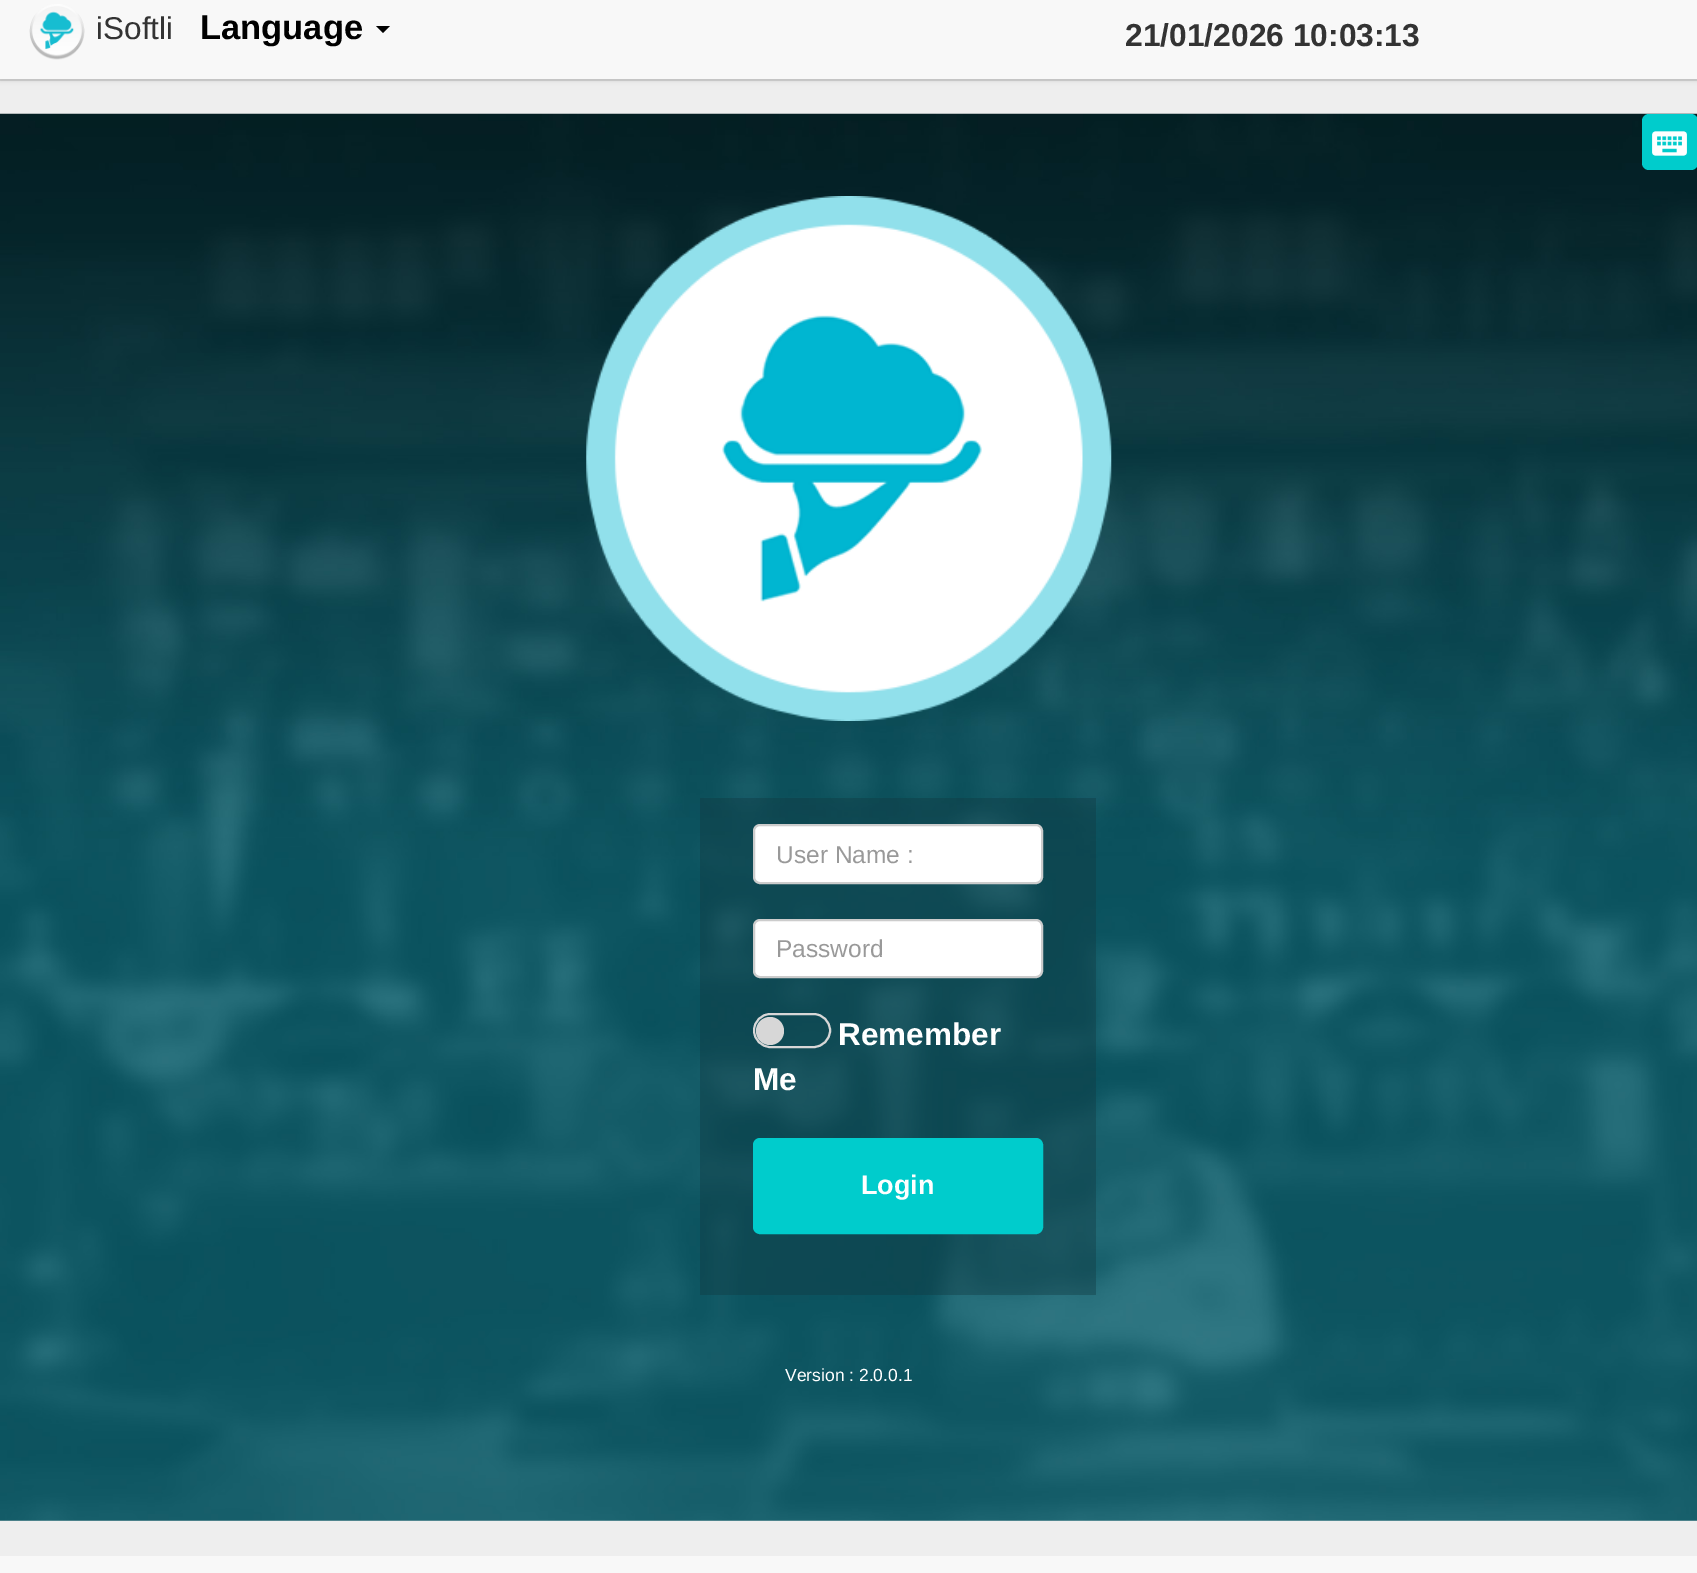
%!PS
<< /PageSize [1697 1573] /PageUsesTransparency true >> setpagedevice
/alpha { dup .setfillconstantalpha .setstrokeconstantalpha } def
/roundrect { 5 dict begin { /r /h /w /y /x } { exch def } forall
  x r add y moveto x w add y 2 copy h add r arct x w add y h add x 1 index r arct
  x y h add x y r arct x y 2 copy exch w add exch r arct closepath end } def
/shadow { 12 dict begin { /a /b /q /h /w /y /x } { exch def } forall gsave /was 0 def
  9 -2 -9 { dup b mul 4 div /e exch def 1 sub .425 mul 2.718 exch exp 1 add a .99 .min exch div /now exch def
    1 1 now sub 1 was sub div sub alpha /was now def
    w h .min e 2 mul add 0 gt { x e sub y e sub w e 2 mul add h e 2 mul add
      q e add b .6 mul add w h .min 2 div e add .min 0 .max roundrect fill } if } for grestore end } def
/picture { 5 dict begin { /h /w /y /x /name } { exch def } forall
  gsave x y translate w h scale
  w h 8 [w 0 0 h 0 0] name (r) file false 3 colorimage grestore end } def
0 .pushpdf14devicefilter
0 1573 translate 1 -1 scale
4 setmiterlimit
0.933 setgray
0 0 1697 1573 rectfill
0 setgray
0 2 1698 79 0 2 0.1 shadow
0.1 alpha
newpath 0 79 moveto 0 81 lineto 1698 81 lineto 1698 2 lineto 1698 79 lineto closepath fill
1 alpha
0.973 setgray
0 0 1697 79 rectfill
(img1.rgb) 29 4 56 56 picture
/LiberationSans-Regular [31.5 0 0 -31.5 0 0] selectfont
0.2 setgray
96 39 moveto (iSoftli) show
/LiberationSans-Bold [34.5 0 0 -34.5 0 0] selectfont
0 setgray
200 39 moveto (Language) show
newpath 376 26 moveto 390 26 lineto 383 33 lineto closepath fill
/LiberationSans-Bold [31.75 0 0 -31.75 0 0] selectfont
0.2 setgray
1125 46 moveto (21/01/2026 10:03:13) show
(img2.rgb) 0 113 1697 1408 picture
0 0.8 0.8 setrgbcolor
1642 114 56 56 7 roundrect fill
(img3.rgb) 1652 131 35 25 picture
(img4.rgb) 586 196 526 525 picture
0.4 alpha
0.063 0.22 0.251 setrgbcolor
700 798 396 497 rectfill
1 alpha
1 setgray
754 825 288 58 6 roundrect gsave fill grestore
0.8 setgray
2 setlinewidth
stroke
/LiberationSans-Regular [24.5 0 0 -24.5 0 0] selectfont
0.6 setgray
776 863 moveto (User Name :) show
1 setgray
754 920 288 57 6 roundrect gsave fill grestore
0.8 setgray
stroke
0.6 setgray
776 957 moveto (Password) show
0.843 setgray
754 1014 76 33 16.5 roundrect stroke
newpath 770 1031 14 0 360 arc closepath fill
/LiberationSans-Bold [31.5 0 0 -31.5 0 0] selectfont
1 setgray
838 1045 moveto (Remember) show
753 1090 moveto (Me) show
0 0.8 0.8 setrgbcolor
754 1139 288 94 6 roundrect gsave fill grestore
stroke
/LiberationSans-Bold [27 0 0 -27 0 0] selectfont
1 setgray
861 1194 moveto (Login) show
/LiberationSans-Regular [17.5 0 0 -17.5 0 0] selectfont
785 1381 moveto (Version : 2.0.0.1) show
0.973 setgray
0 1556 1697 17 rectfill
.poppdf14devicefilter showpage
